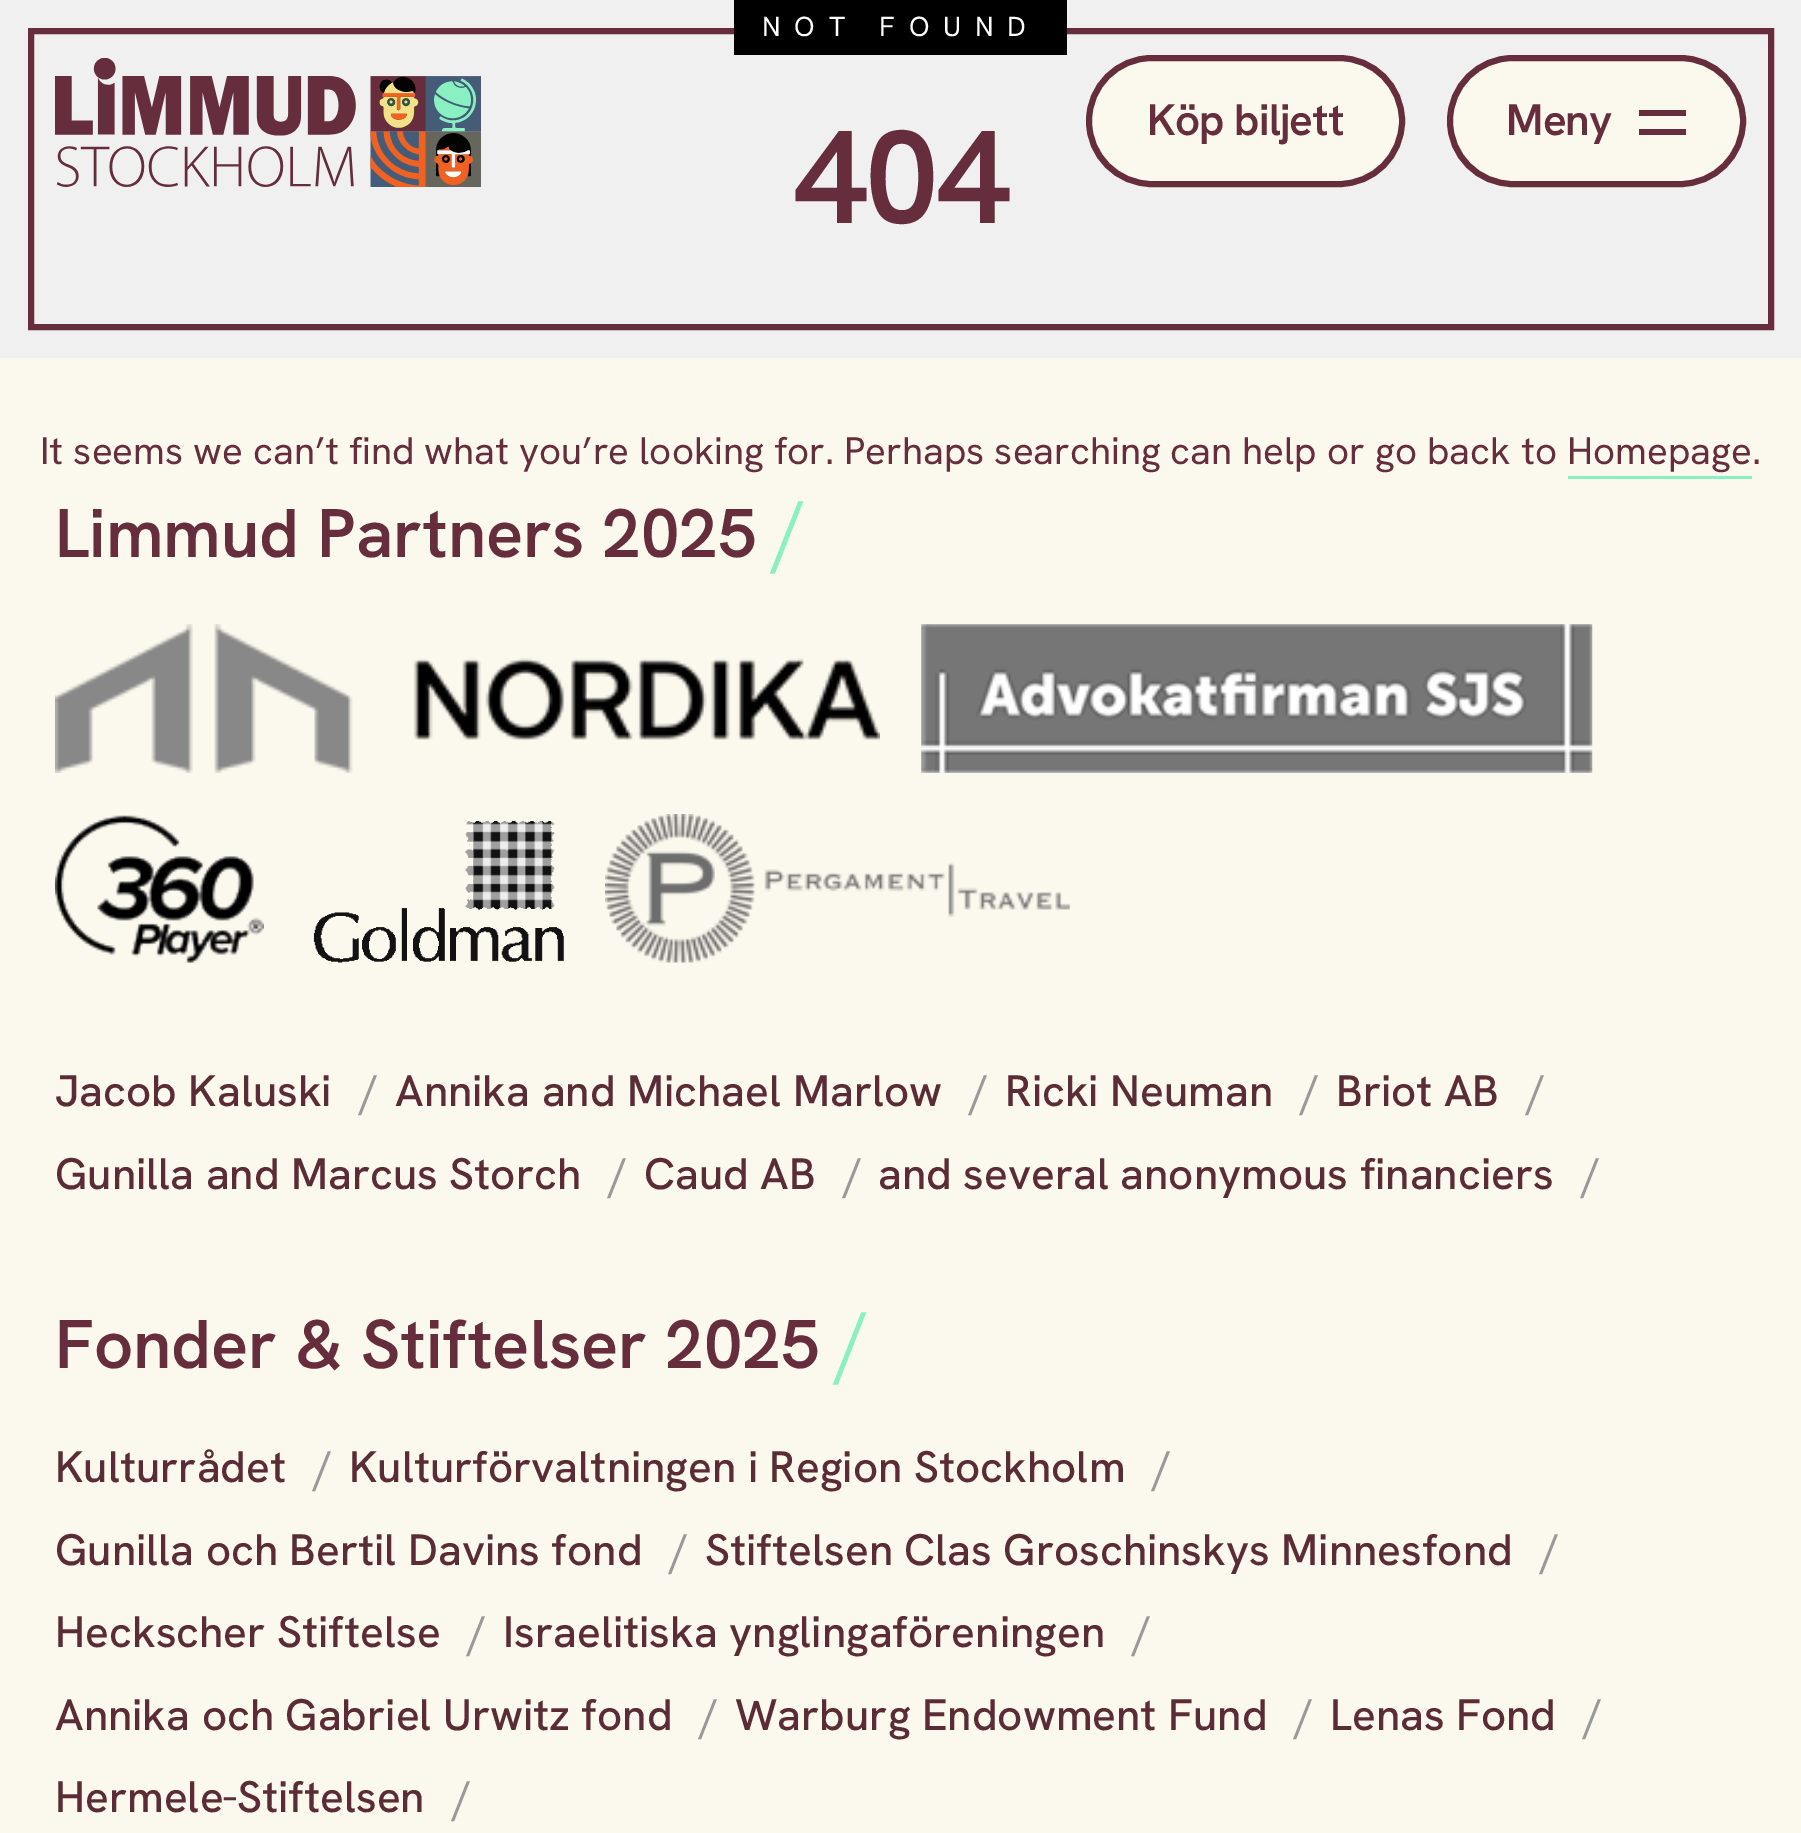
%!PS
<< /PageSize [1801 1833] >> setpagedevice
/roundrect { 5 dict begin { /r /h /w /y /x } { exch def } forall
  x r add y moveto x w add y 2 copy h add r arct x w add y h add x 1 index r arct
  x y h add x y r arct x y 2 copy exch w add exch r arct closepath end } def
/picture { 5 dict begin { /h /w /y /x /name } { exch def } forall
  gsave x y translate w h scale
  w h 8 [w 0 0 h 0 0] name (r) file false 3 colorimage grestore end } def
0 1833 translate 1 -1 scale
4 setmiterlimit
0.984 0.973 0.929 setrgbcolor
0 0 1801 1833 rectfill
0.941 setgray
0 0 1801 358 rectfill
0.4 0.18 0.239 setrgbcolor
6 setlinewidth
31 31 1740 296 rectstroke
0 setgray
734 0 333 55 rectfill
/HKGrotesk-Regular [27.5 0 0 -27.5 0 0] selectfont
1 setgray
762 36 moveto 13.75 0 (NOT FOUND) ashow
/HKGrotesk-SemiBold [132 0 0 -132 0 0] selectfont
0.4 0.18 0.239 setrgbcolor
794 223 moveto -2.5 0 (404) ashow
(img1.rgb) 55 58 426 129 picture
0.984 0.973 0.929 setrgbcolor
1089 58 313 126 63 roundrect gsave fill grestore
0.4 0.18 0.239 setrgbcolor
stroke
/HKGrotesk-SemiBold [44 0 0 -44 0 0] selectfont
1147 135 moveto -0.9 0 (Köp biljett) ashow
0.984 0.973 0.929 setrgbcolor
1450 58 293 126 63 roundrect gsave fill grestore
0.4 0.18 0.239 setrgbcolor
stroke
1506 135 moveto -0.9 0 (Meny) ashow
1639 110 47 6 rectfill
1639 129 47 6 rectfill
/HKGrotesk-Regular [38.5 0 0 -38.5 0 0] selectfont
40 464 moveto (It seems we can’t find what you’re looking for. Perhaps searching can help or go back to Homepage.) show
0.537 0.945 0.757 setrgbcolor
1568 476 184 3 rectfill
/HKGrotesk-SemiBold [68.75 0 0 -68.75 0 0] selectfont
0.4 0.18 0.239 setrgbcolor
55 557 moveto (Limmud Partners 2025) show
/HKGrotesk-Regular [80 0 0 -80 0 0] selectfont
0.537 0.945 0.757 setrgbcolor
773 557 moveto (/) show
(img2.rgb) 55 624 825 149 picture
(img3.rgb) 921 624 672 149 picture
(img4.rgb) 55 815 209 148 picture
(img5.rgb) 313 821 251 142 picture
(img6.rgb) 605 814 465 149 picture
/HKGrotesk-Medium [44 0 0 -44 0 0] selectfont
0.357 0.173 0.208 setrgbcolor
55 1106 moveto (Jacob Kaluski) show
0.6 setgray
360 1106 moveto (/) show
0.357 0.173 0.208 setrgbcolor
395 1106 moveto (Annika and Michael Marlow) show
0.6 setgray
970 1106 moveto (/) show
0.357 0.173 0.208 setrgbcolor
1005 1106 moveto (Ricki Neuman) show
0.6 setgray
1301 1106 moveto (/) show
0.357 0.173 0.208 setrgbcolor
1336 1106 moveto (Briot AB) show
0.6 setgray
1527 1106 moveto (/) show
0.357 0.173 0.208 setrgbcolor
55 1189 moveto (Gunilla and Marcus Storch) show
0.6 setgray
609 1189 moveto (/) show
0.357 0.173 0.208 setrgbcolor
644 1189 moveto (Caud AB) show
0.6 setgray
844 1189 moveto (/) show
0.357 0.173 0.208 setrgbcolor
878 1189 moveto (and several anonymous financiers) show
0.6 setgray
1582 1189 moveto (/) show
/HKGrotesk-SemiBold [68.75 0 0 -68.75 0 0] selectfont
0.4 0.18 0.239 setrgbcolor
55 1368 moveto (Fonder & Stiftelser 2025) show
/HKGrotesk-Regular [80 0 0 -80 0 0] selectfont
0.537 0.945 0.757 setrgbcolor
836 1368 moveto (/) show
/HKGrotesk-Medium [44 0 0 -44 0 0] selectfont
0.357 0.173 0.208 setrgbcolor
55 1482 moveto (Kulturrådet) show
0.6 setgray
314 1482 moveto (/) show
0.357 0.173 0.208 setrgbcolor
349 1482 moveto (Kulturförvaltningen i Region Stockholm) show
0.6 setgray
1153 1482 moveto (/) show
0.357 0.173 0.208 setrgbcolor
55 1565 moveto (Gunilla och Bertil Davins fond) show
0.6 setgray
670 1565 moveto (/) show
0.357 0.173 0.208 setrgbcolor
705 1565 moveto (Stiftelsen Clas Groschinskys Minnesfond) show
0.6 setgray
1541 1565 moveto (/) show
0.357 0.173 0.208 setrgbcolor
55 1647 moveto (Heckscher Stiftelse) show
0.6 setgray
468 1647 moveto (/) show
0.357 0.173 0.208 setrgbcolor
503 1647 moveto (Israelitiska ynglingaföreningen) show
0.6 setgray
1133 1647 moveto (/) show
0.357 0.173 0.208 setrgbcolor
55 1730 moveto (Annika och Gabriel Urwitz fond) show
0.6 setgray
700 1730 moveto (/) show
0.357 0.173 0.208 setrgbcolor
735 1730 moveto (Warburg Endowment Fund) show
0.6 setgray
1295 1730 moveto (/) show
0.357 0.173 0.208 setrgbcolor
1330 1730 moveto (Lenas Fond) show
0.6 setgray
1584 1730 moveto (/) show
0.357 0.173 0.208 setrgbcolor
55 1812 moveto (Hermele-Stiftelsen) show
0.6 setgray
453 1812 moveto (/) show
showpage
